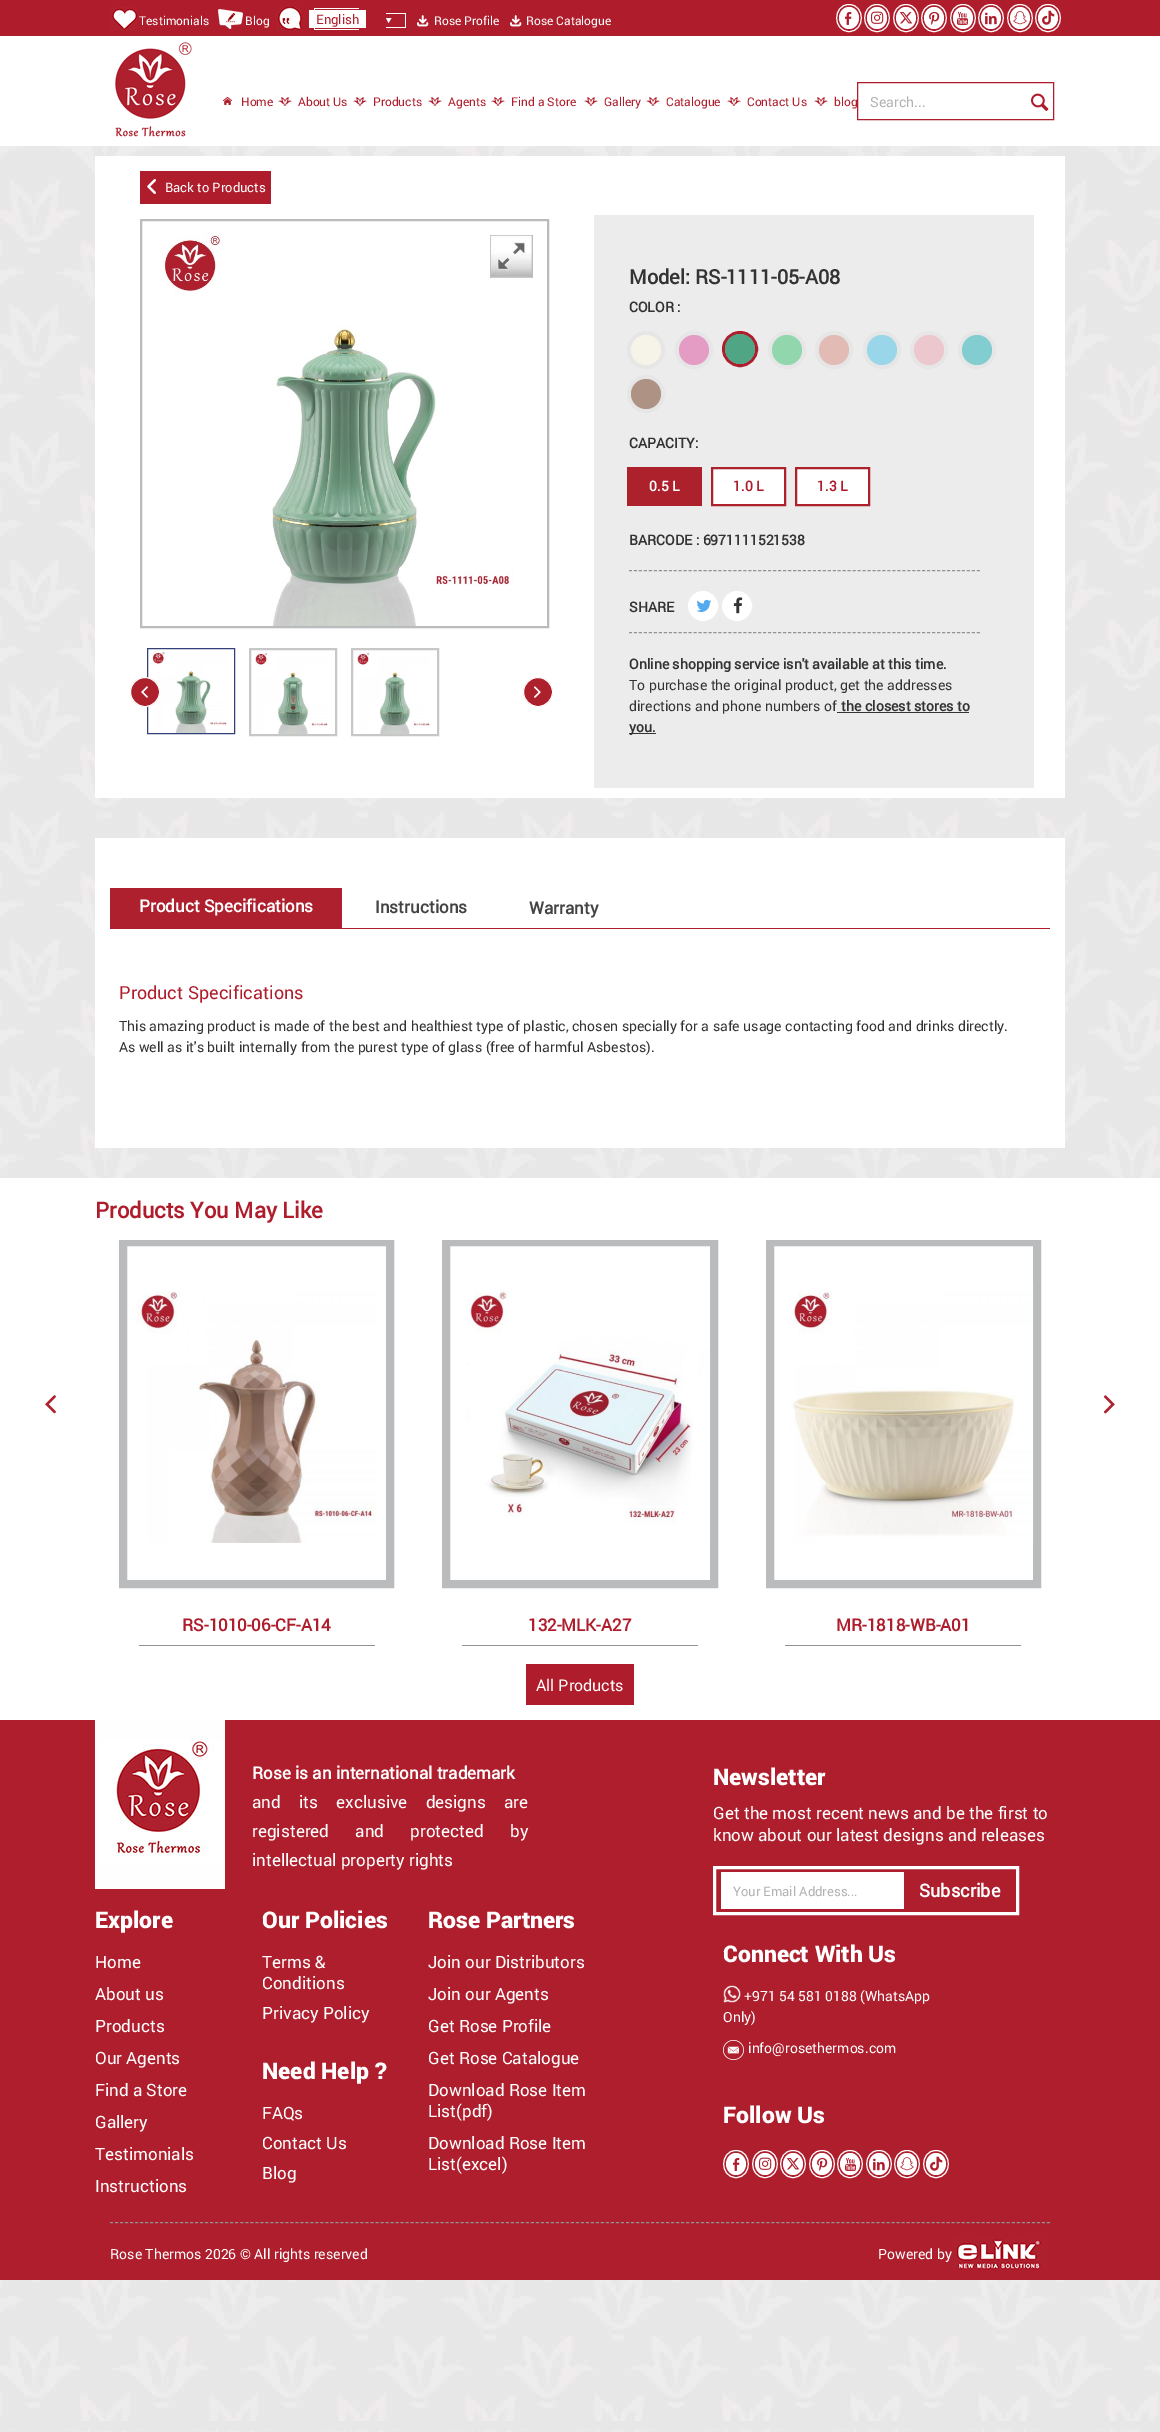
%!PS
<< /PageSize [1160 2432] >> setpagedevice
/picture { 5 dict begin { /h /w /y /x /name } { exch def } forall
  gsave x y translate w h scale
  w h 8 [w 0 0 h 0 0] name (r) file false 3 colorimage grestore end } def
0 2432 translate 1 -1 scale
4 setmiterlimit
1 setgray
0 0 1160 2432 rectfill
(img1.rgb) 0 146 1160 2286 picture
0.686 0.114 0.173 setrgbcolor
0 0 1160 36 rectfill
(img2.rgb) 110 7 27 24 picture
/Roboto-Regular [12 0 0 -12 0 0] selectfont
1 setgray
139 25 moveto (Testimonials) show
(img3.rgb) 218 9 25 20 picture
245 25 moveto (Blog) show
(img4.rgb) 276 7 26 24 picture
314 8 45 1 rectfill
314 29 45 1 rectfill
314 8 1 22 rectfill
309 10 57 18 rectfill
/Roboto-Regular [13 0 0 -13 0 0] selectfont
0.686 0.114 0.173 setrgbcolor
316 24 moveto (English) show
1 setgray
386 13 20 1 rectfill
405 13 1 15 rectfill
386 27 20 1 rectfill
newpath 388.5 23 moveto 386 18 lineto 391.5 18 lineto closepath fill
(img5.rgb) 417 15 12 12 picture
/Roboto-Regular [12 0 0 -12 0 0] selectfont
434 25 moveto (Rose Profile) show
(img5.rgb) 510 15 12 12 picture
526 25 moveto (Rose Catalogue) show
newpath 849 4.5 moveto 865.5 4.5 865.5 31.5 849 31.5 curveto 832.5 31.5 832.5 4.5 849 4.5 curveto closepath 877 4.5 moveto 893.5 4.5 893.5 31.5 877 31.5 curveto 860.5 31.5 860.5 4.5 877 4.5 curveto closepath stroke
newpath 849 7 moveto 854.5 7 859 12 859 18 curveto 859 24 854.5 29 849 29 curveto 843.5 29 839 24 839 18 curveto 839 12 843.5 7 849 7 curveto closepath fill
(img6.rgb) 845 11 7 14 picture
newpath 906 4.5 moveto 922.5 4.5 922.5 31.5 906 31.5 curveto 889.5 31.5 889.5 4.5 906 4.5 curveto closepath 934 4.5 moveto 950.5 4.5 950.5 31.5 934 31.5 curveto 917.5 31.5 917.5 4.5 934 4.5 curveto closepath stroke
newpath 906 7 moveto 911.5 7 916 12 916 18 curveto 916 24 911.5 29 906 29 curveto 900.5 29 896 24 896 18 curveto 896 12 900.5 7 906 7 curveto closepath fill
(img7.rgb) 899 12 14 12 picture
newpath 963 4.5 moveto 979.5 4.5 979.5 31.5 963 31.5 curveto 946.5 31.5 946.5 4.5 963 4.5 curveto closepath 991 4.5 moveto 1007.5 4.5 1007.5 31.5 991 31.5 curveto 974.5 31.5 974.5 4.5 991 4.5 curveto closepath stroke
newpath 963 7 moveto 968.5 7 973 12 973 18 curveto 973 24 968.5 29 963 29 curveto 957.5 29 953 24 953 18 curveto 953 12 957.5 7 963 7 curveto closepath fill
(img8.rgb) 956 11 13 14 picture
newpath 1020 4.5 moveto 1036.5 4.5 1036.5 31.5 1020 31.5 curveto 1003.5 31.5 1003.5 4.5 1020 4.5 curveto closepath 1048 4.5 moveto 1064.5 4.5 1064.5 31.5 1048 31.5 curveto 1031.5 31.5 1031.5 4.5 1048 4.5 curveto closepath stroke
newpath 1020 7 moveto 1025.5 7 1030 12 1030 18 curveto 1030 24 1025.5 29 1020 29 curveto 1014.5 29 1010 24 1010 18 curveto 1010 12 1014.5 7 1020 7 curveto closepath fill
(img9.rgb) 1013 11 14 14 picture
newpath 877 7 moveto 882.5 7 887 12 887 18 curveto 887 24 882.5 29 877 29 curveto 871.5 29 867 24 867 18 curveto 867 12 871.5 7 877 7 curveto closepath fill
(img10.rgb) 871 11 13 13 picture
newpath 934 7 moveto 939.5 7 944 12 944 18 curveto 944 24 939.5 29 934 29 curveto 928.5 29 924 24 924 18 curveto 924 12 928.5 7 934 7 curveto closepath fill
(img11.rgb) 929 11 11 14 picture
newpath 991 7 moveto 996.5 7 1001 12 1001 18 curveto 1001 24 996.5 29 991 29 curveto 985.5 29 981 24 981 18 curveto 981 12 985.5 7 991 7 curveto closepath fill
(img12.rgb) 985 12 12 13 picture
newpath 1048 7 moveto 1053.5 7 1058 12 1058 18 curveto 1058 24 1053.5 29 1048 29 curveto 1042.5 29 1038 24 1038 18 curveto 1038 12 1042.5 7 1048 7 curveto closepath fill
(img13.rgb) 1042 10 13 15 picture
(img14.rgb) 115 42 77 95 picture
(img15.rgb) 223 97 9 8 picture
0.686 0.114 0.173 setrgbcolor
241 106 moveto (Home) show
(img16.rgb) 278 97 14 9 picture
298 106 moveto (About Us) show
(img16.rgb) 353 97 14 9 picture
373 106 moveto (Products) show
(img16.rgb) 428 97 14 9 picture
448 106 moveto (Agents) show
(img16.rgb) 491 97 14 9 picture
511 106 moveto (Find a Store) show
(img16.rgb) 584 97 14 9 picture
604 106 moveto (Gallery) show
(img16.rgb) 646 97 14 9 picture
666 106 moveto (Catalogue) show
(img16.rgb) 727 97 14 9 picture
747 106 moveto (Contact Us) show
(img16.rgb) 814 97 14 9 picture
834 106 moveto (blog) show
857.5 82.5 196 37 rectstroke
/Roboto-Regular [14 0 0 -14 0 0] selectfont
0.698 setgray
870 107 moveto (Search...) show
(img17.rgb) 1031 93 18 18 picture
1 setgray
95 156 970 642 rectfill
0.686 0.114 0.173 setrgbcolor
140 171 131 33 rectfill
(img18.rgb) 147 179 9 15 picture
/Roboto-Regular [13 0 0 -13 0 0] selectfont
1 setgray
165 192 moveto (Back to Products) show
0.729 0.733 0.741 setrgbcolor
2 setlinewidth
141 220 407 407 rectstroke
(img19.rgb) 160 231 354 395 picture
(img20.rgb) 490 235 43 43 picture
0.204 0.251 0.475 setrgbcolor
1 setlinewidth
147.5 648.5 87 85 rectstroke
(img21.rgb) 152 651 75 82 picture
0.78 setgray
2 setlinewidth
250 649 86 86 rectstroke
(img22.rgb) 255 652 73 82 picture
352 649 86 86 rectstroke
(img23.rgb) 357 652 73 82 picture
0.675 0.129 0.169 setrgbcolor
newpath 145 692 14.5 0 360 arc closepath gsave fill grestore
1 setgray
1 setlinewidth
stroke
(img24.rgb) 141 686 7 12 picture
0.675 0.129 0.169 setrgbcolor
newpath 538 692 14.5 0 360 arc closepath gsave fill grestore
1 setgray
stroke
(img25.rgb) 534 686 7 12 picture
0.925 setgray
594 215 440 573 rectfill
/Roboto-Bold [20 0 0 -20 0 0] selectfont
0.2 setgray
629 284 moveto (Model: RS-1111-05-A08) show
/Roboto-Bold [14 0 0 -14 0 0] selectfont
629 312 moveto (COLOR :) show
0.902 setgray
4 setlinewidth
newpath 646 350 17 0 360 arc closepath stroke
0.965 0.953 0.91 setrgbcolor
newpath 646 350 15 0 360 arc closepath fill
0.902 setgray
newpath 694 350 17 0 360 arc closepath stroke
0.894 0.612 0.769 setrgbcolor
newpath 694 350 15 0 360 arc closepath fill
0.686 0.114 0.173 setrgbcolor
3 setlinewidth
newpath 740 349 16.5 0 360 arc closepath stroke
0.314 0.651 0.518 setrgbcolor
newpath 740 349 15 0 360 arc closepath fill
0.902 setgray
4 setlinewidth
newpath 787 350 17 0 360 arc closepath stroke
0.569 0.839 0.675 setrgbcolor
newpath 787 350 15 0 360 arc closepath fill
0.902 setgray
newpath 834 350 17 0 360 arc closepath stroke
0.882 0.733 0.706 setrgbcolor
newpath 834 350 15 0 360 arc closepath fill
0.902 setgray
newpath 882 350 17 0 360 arc closepath stroke
0.6 0.839 0.918 setrgbcolor
newpath 882 350 15 0 360 arc closepath fill
0.902 setgray
newpath 929 350 17 0 360 arc closepath stroke
0.925 0.78 0.804 setrgbcolor
newpath 929 350 15 0 360 arc closepath fill
0.902 setgray
newpath 977 350 17 0 360 arc closepath stroke
0.51 0.804 0.816 setrgbcolor
newpath 977 350 15 0 360 arc closepath fill
0.902 setgray
newpath 646 394 17 0 360 arc closepath stroke
0.682 0.573 0.518 setrgbcolor
newpath 646 394 15 0 360 arc closepath fill
0.2 setgray
629 448 moveto (CAPACITY:) show
0.675 0.129 0.169 setrgbcolor
627 467 75 39 rectfill
1 setgray
649 491 moveto (0.5 L) show
newpath 712 468 moveto 785 468 lineto 785 505 lineto 712 505 lineto closepath gsave fill grestore
0.675 0.129 0.169 setrgbcolor
2 setlinewidth
stroke
0.686 0.114 0.173 setrgbcolor
733 491 moveto (1.0 L) show
1 setgray
newpath 796 468 moveto 869 468 lineto 869 505 lineto 796 505 lineto closepath gsave fill grestore
0.675 0.129 0.169 setrgbcolor
stroke
0.686 0.114 0.173 setrgbcolor
817 491 moveto (1.3 L) show
0.2 setgray
629 545 moveto (BARCODE : 6971111521538) show
0.569 0.573 0.588 setrgbcolor
1 setlinewidth
[3 1.97] 0 setdash
newpath 629 570.5 moveto 980 570.5 lineto stroke
0.2 setgray
629 612 moveto (SHARE) show
1 setgray
newpath 703 606 14.5 0 360 arc closepath gsave fill grestore
[] 0 setdash
stroke
(img26.rgb) 696 599 16 13 picture
newpath 737 606 14.5 0 360 arc closepath gsave fill grestore
stroke
(img27.rgb) 733 597 10 17 picture
0.569 0.573 0.588 setrgbcolor
[3 1.97] 0 setdash
newpath 629 632.5 moveto 980 632.5 lineto stroke
0.2 setgray
629 669 moveto (Online shopping service isn't available at this time.) show
/Roboto-Regular [14 0 0 -14 0 0] selectfont
629 690 moveto (To purchase the original product, get the addresses) show
629 711 moveto (directions and phone numbers of) show
/Roboto-Bold [14 0 0 -14 0 0] selectfont
841 711 moveto (the closest stores to) show
837 712 132 1 rectfill
629 733 27 1 rectfill
629 732 moveto (you.) show
1 setgray
95 838 970 310 rectfill
0.686 0.114 0.173 setrgbcolor
110 928 940 1 rectfill
0.682 0.125 0.18 setrgbcolor
110 888 232 40 rectfill
/Roboto-Bold [17 0 0 -17 0 0] selectfont
1 setgray
139 912 moveto (Product Specifications) show
0.267 setgray
375 913 moveto (Instructions) show
529 914 moveto (Warranty) show
/Roboto-Regular [18 0 0 -18 0 0] selectfont
0.686 0.114 0.173 setrgbcolor
119 999 moveto (Product Specifications) show
/Roboto-Regular [14 0 0 -14 0 0] selectfont
0.2 setgray
119 1031 moveto (This amazing product is made of the best and healthiest type of plastic, chosen specially for a safe usage contacting food and drinks directly.) show
119 1052 moveto (As well as it's built internally from the purest type of glass \(free of harmful Asbestos\).) show
1 setgray
0 1178 1160 542 rectfill
/Roboto-Bold [22 0 0 -22 0 0] selectfont
0.686 0.114 0.173 setrgbcolor
95 1218 moveto (Products You May Like) show
(img28.rgb) 45 1395 11 19 picture
(img29.rgb) 1104 1395 11 19 picture
gsave
95 1240 970 426 rectclip
0.729 0.733 0.741 setrgbcolor
8 setlinewidth
[] 0 setdash
123 1242 267 342 rectstroke
grestore
(img30.rgb) 135 1291 241 252 picture
/Roboto-Bold [17 0 0 -17 0 0] selectfont
182 1631 moveto (RS-1010-06-CF-A14) show
0.569 0.573 0.588 setrgbcolor
139 1645 236 1 rectfill
gsave
95 1240 970 426 rectclip
0.729 0.733 0.741 setrgbcolor
8 setlinewidth
[] 0 setdash
446 1242 268 342 rectstroke
grestore
(img31.rgb) 466 1283 245 260 picture
0.686 0.114 0.173 setrgbcolor
528 1631 moveto (132-MLK-A27) show
0.569 0.573 0.588 setrgbcolor
462 1645 236 1 rectfill
gsave
95 1240 970 426 rectclip
0.729 0.733 0.741 setrgbcolor
8 setlinewidth
[] 0 setdash
770 1242 267 342 rectstroke
grestore
(img32.rgb) 790 1283 244 260 picture
0.686 0.114 0.173 setrgbcolor
836 1631 moveto (MR-1818-WB-A01) show
0.569 0.573 0.588 setrgbcolor
785 1645 236 1 rectfill
0.686 0.114 0.173 setrgbcolor
526 1664 108 41 rectfill
/Roboto-Regular [16 0 0 -16 0 0] selectfont
1 setgray
536 1691 moveto (All Products) show
0.682 0.118 0.173 setrgbcolor
0 1720 1160 560 rectfill
(img33.rgb) 95 1720 130 169 picture
/Roboto-Bold [17 0 0 -17 0 0] selectfont
1 setgray
252 1779 moveto (Rose is an international trademark) show
/Roboto-Regular [17 0 0 -17 0 0] selectfont
252 1808 moveto 14 0 32 (and its exclusive designs are) widthshow
252 1837 moveto 22 0 32 (registered and protected by) widthshow
252 1866 moveto (intellectual property rights) show
/Roboto-Black [23 0 0 -23 0 0] selectfont
713 1785 moveto (Newsletter) show
/Roboto-Regular [17 0 0 -17 0 0] selectfont
713 1819 moveto (Get the most recent news and be the first to) show
713 1841 moveto (know about our latest designs and releases) show
3 setlinewidth
[] 0 setdash
714.5 1867.5 303 46 rectstroke
721 1872 183 37 rectfill
/Roboto-Regular [13 0 0 -13 0 0] selectfont
0.698 setgray
733 1896 moveto (Your Email Address...) show
/Roboto-Bold [18 0 0 -18 0 0] selectfont
1 setgray
919 1897 moveto (Subscribe) show
/Roboto-Black [23 0 0 -23 0 0] selectfont
95 1928 moveto (Explore) show
/Roboto-Regular [17 0 0 -17 0 0] selectfont
95 1968 moveto (Home) show
95 2000 moveto (About us) show
95 2032 moveto (Products) show
95 2064 moveto (Our Agents) show
95 2096 moveto (Find a Store) show
95 2128 moveto (Gallery) show
95 2160 moveto (Testimonials) show
95 2192 moveto (Instructions) show
/Roboto-Black [23 0 0 -23 0 0] selectfont
262 1928 moveto (Our Policies) show
/Roboto-Regular [17 0 0 -17 0 0] selectfont
262 1968 moveto (Terms &) show
262 1989 moveto (Conditions) show
262 2019 moveto (Privacy Policy) show
/Roboto-Black [23 0 0 -23 0 0] selectfont
262 2079 moveto (Need Help ?) show
/Roboto-Regular [17 0 0 -17 0 0] selectfont
262 2119 moveto (FAQs) show
262 2149 moveto (Contact Us) show
262 2179 moveto (Blog) show
/Roboto-Black [23 0 0 -23 0 0] selectfont
428 1928 moveto (Rose Partners) show
/Roboto-Regular [17 0 0 -17 0 0] selectfont
428 1968 moveto (Join our Distributors) show
428 2000 moveto (Join our Agents) show
428 2032 moveto (Get Rose Profile) show
428 2064 moveto (Get Rose Catalogue) show
428 2096 moveto (Download Rose Item) show
428 2117 moveto (List\(pdf\)) show
428 2149 moveto (Download Rose Item) show
428 2170 moveto (List\(excel\)) show
/Roboto-Black [23 0 0 -23 0 0] selectfont
723 1962 moveto (Connect With Us) show
(img34.rgb) 723 1985 18 18 picture
/Roboto-Regular [14 0 0 -14 0 0] selectfont
744 2001 moveto (+971 54 581 0188 \(WhatsApp) show
723 2022 moveto (Only\)) show
(img35.rgb) 723 2040 21 20 picture
748 2053 moveto (info@rosethermos.com) show
/Roboto-Black [23 0 0 -23 0 0] selectfont
723 2123 moveto (Follow Us) show
1 setlinewidth
newpath 736 2150.5 moveto 752.5 2150.5 752.5 2177.5 736 2177.5 curveto 719.5 2177.5 719.5 2150.5 736 2150.5 curveto closepath 765 2150.5 moveto 781.5 2150.5 781.5 2177.5 765 2177.5 curveto 748.5 2177.5 748.5 2150.5 765 2150.5 curveto closepath stroke
newpath 736 2153 moveto 741.5 2153 746 2158 746 2164 curveto 746 2170 741.5 2175 736 2175 curveto 730.5 2175 726 2170 726 2164 curveto 726 2158 730.5 2153 736 2153 curveto closepath fill
(img6.rgb) 733 2157 7 14 picture
newpath 793 2150.5 moveto 809.5 2150.5 809.5 2177.5 793 2177.5 curveto 776.5 2177.5 776.5 2150.5 793 2150.5 curveto closepath 822 2150.5 moveto 838.5 2150.5 838.5 2177.5 822 2177.5 curveto 805.5 2177.5 805.5 2150.5 822 2150.5 curveto closepath stroke
newpath 793 2153 moveto 798.5 2153 803 2158 803 2164 curveto 803 2170 798.5 2175 793 2175 curveto 787.5 2175 783 2170 783 2164 curveto 783 2158 787.5 2153 793 2153 curveto closepath fill
(img7.rgb) 786 2158 14 12 picture
newpath 850 2150.5 moveto 866.5 2150.5 866.5 2177.5 850 2177.5 curveto 833.5 2177.5 833.5 2150.5 850 2150.5 curveto closepath 879 2150.5 moveto 895.5 2150.5 895.5 2177.5 879 2177.5 curveto 862.5 2177.5 862.5 2150.5 879 2150.5 curveto closepath stroke
newpath 850 2153 moveto 855.5 2153 860 2158 860 2164 curveto 860 2170 855.5 2175 850 2175 curveto 844.5 2175 840 2170 840 2164 curveto 840 2158 844.5 2153 850 2153 curveto closepath fill
(img8.rgb) 844 2157 13 14 picture
newpath 907 2150.5 moveto 923.5 2150.5 923.5 2177.5 907 2177.5 curveto 890.5 2177.5 890.5 2150.5 907 2150.5 curveto closepath 936 2150.5 moveto 952.5 2150.5 952.5 2177.5 936 2177.5 curveto 919.5 2177.5 919.5 2150.5 936 2150.5 curveto closepath stroke
newpath 907 2153 moveto 912.5 2153 917 2158 917 2164 curveto 917 2170 912.5 2175 907 2175 curveto 901.5 2175 897 2170 897 2164 curveto 897 2158 901.5 2153 907 2153 curveto closepath fill
(img9.rgb) 900 2157 14 14 picture
newpath 765 2153 moveto 770.5 2153 775 2158 775 2164 curveto 775 2170 770.5 2175 765 2175 curveto 759.5 2175 755 2170 755 2164 curveto 755 2158 759.5 2153 765 2153 curveto closepath fill
(img10.rgb) 759 2157 13 13 picture
newpath 822 2153 moveto 827.5 2153 832 2158 832 2164 curveto 832 2170 827.5 2175 822 2175 curveto 816.5 2175 812 2170 812 2164 curveto 812 2158 816.5 2153 822 2153 curveto closepath fill
(img11.rgb) 817 2157 11 14 picture
newpath 879 2153 moveto 884.5 2153 889 2158 889 2164 curveto 889 2170 884.5 2175 879 2175 curveto 873.5 2175 869 2170 869 2164 curveto 869 2158 873.5 2153 879 2153 curveto closepath fill
(img12.rgb) 873 2158 12 13 picture
newpath 936 2153 moveto 941.5 2153 946 2158 946 2164 curveto 946 2170 941.5 2175 936 2175 curveto 930.5 2175 926 2170 926 2164 curveto 926 2158 930.5 2153 936 2153 curveto closepath fill
(img13.rgb) 930 2156 13 15 picture
0.569 0.573 0.588 setrgbcolor
[3 2.01] 0 setdash
newpath 110 2222.5 moveto 1050 2222.5 lineto stroke
/Roboto-Regular [14 0 0 -14 0 0] selectfont
1 setgray
110 2259 moveto (Rose Thermos 2026 © All rights reserved) show
878 2259 moveto (Powered by) show
(img36.rgb) 952 2238 96 32 picture
showpage
